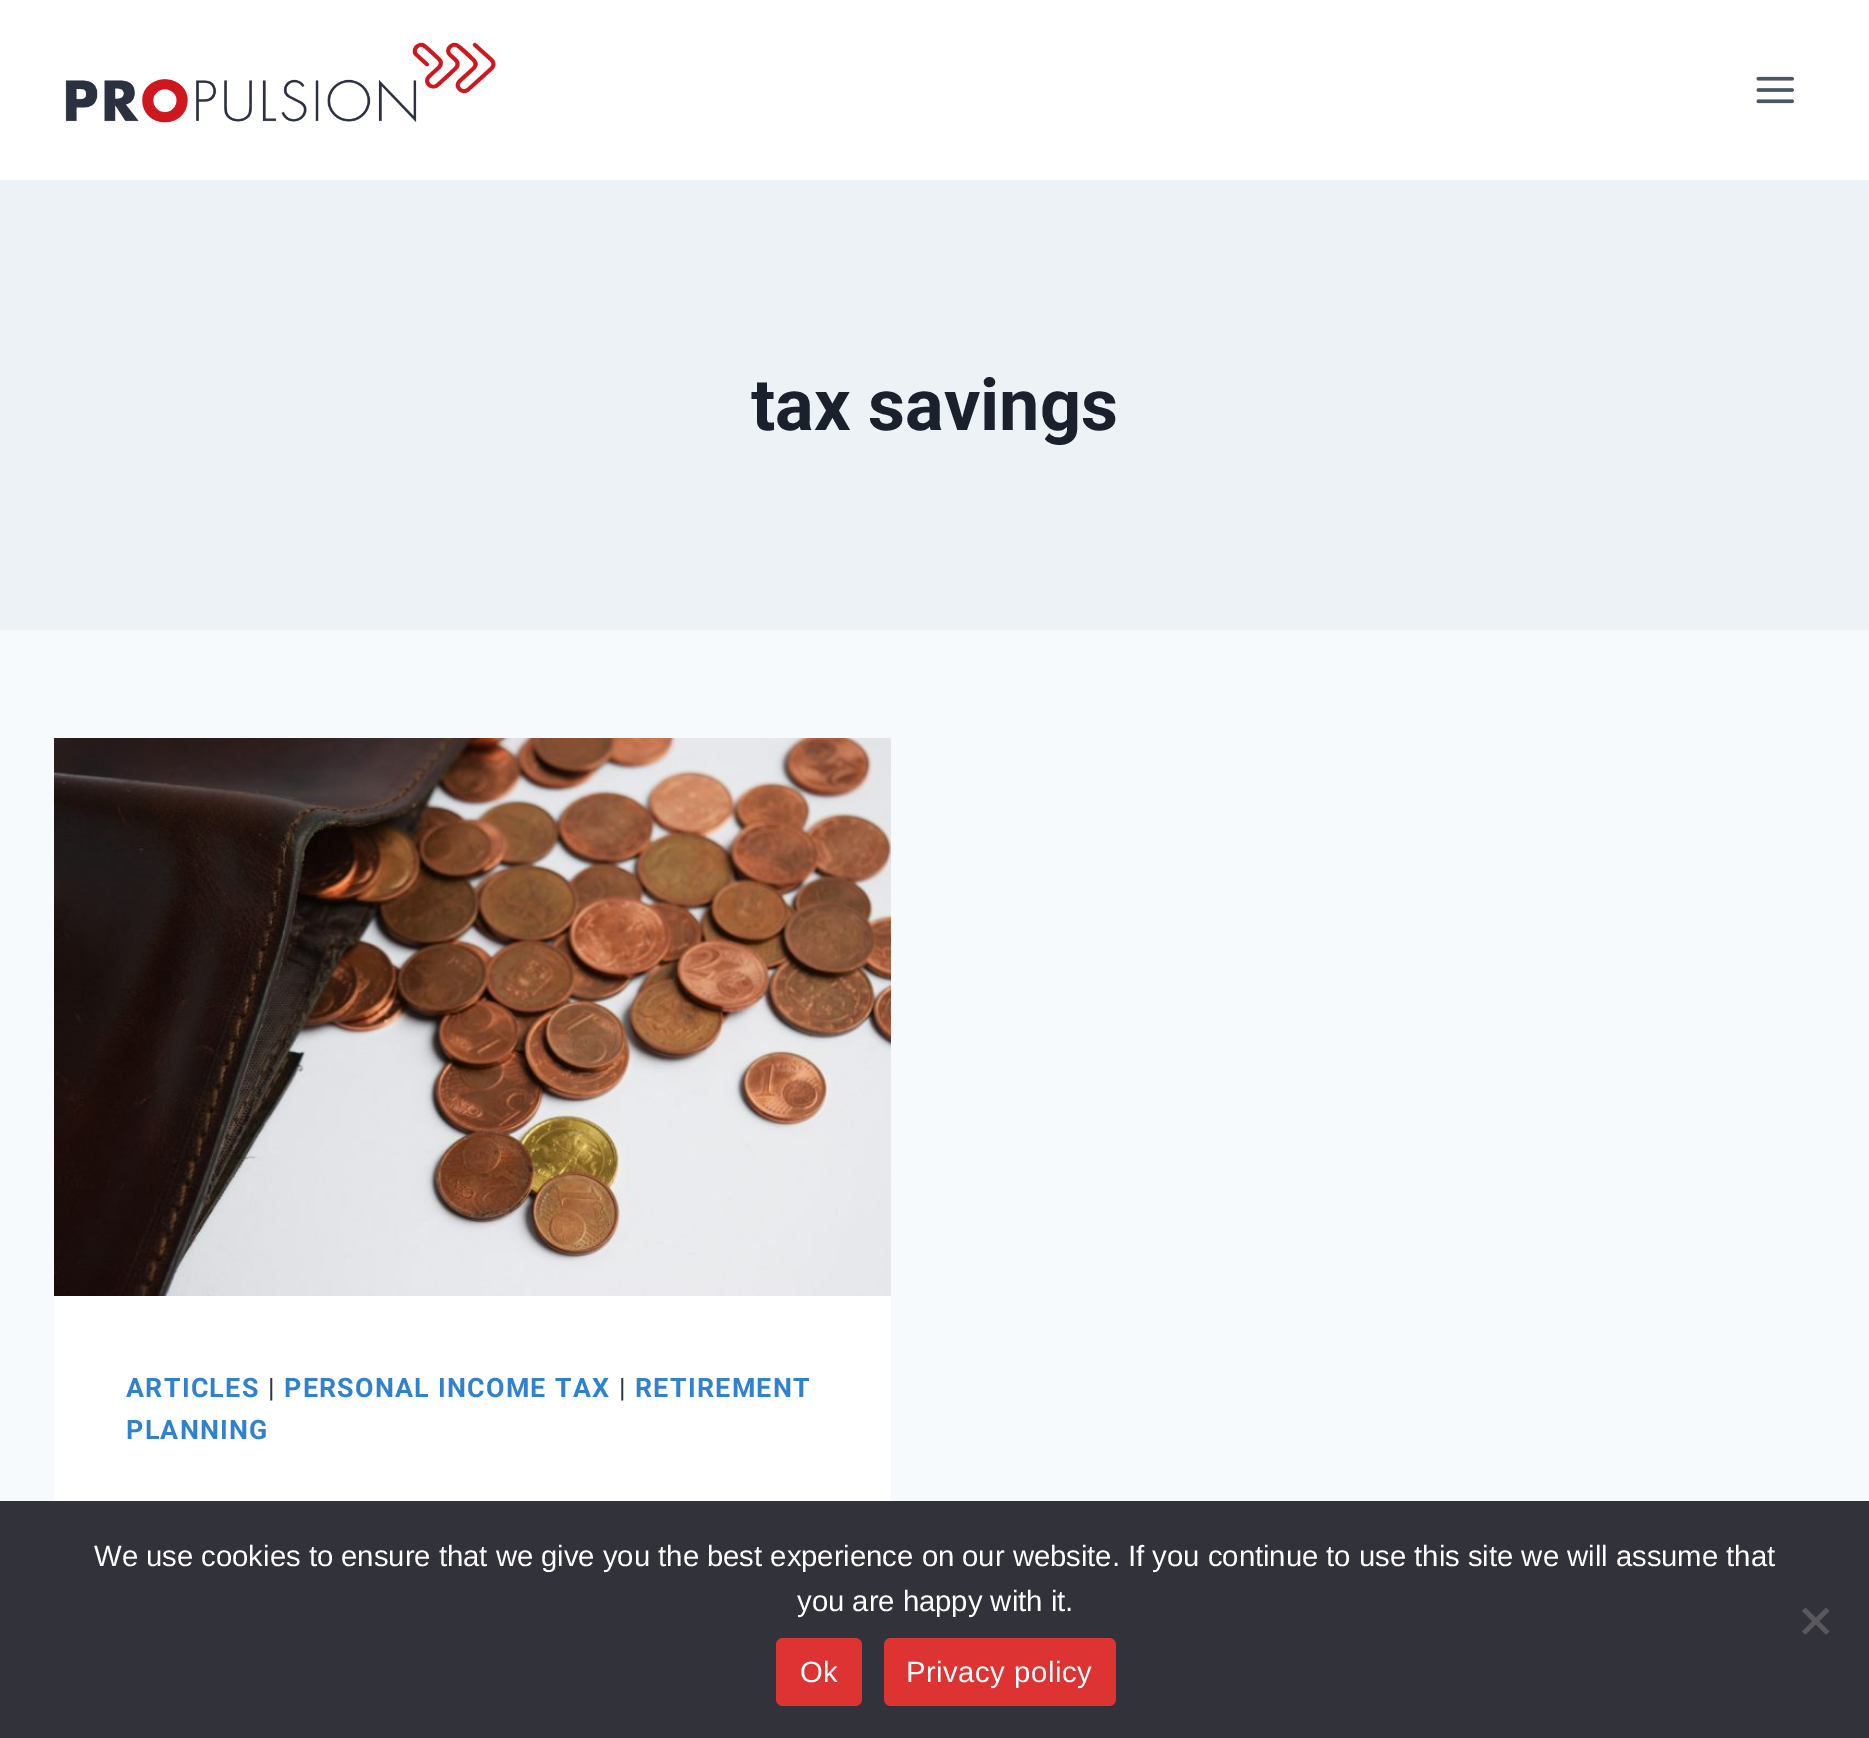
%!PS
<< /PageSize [1869 1738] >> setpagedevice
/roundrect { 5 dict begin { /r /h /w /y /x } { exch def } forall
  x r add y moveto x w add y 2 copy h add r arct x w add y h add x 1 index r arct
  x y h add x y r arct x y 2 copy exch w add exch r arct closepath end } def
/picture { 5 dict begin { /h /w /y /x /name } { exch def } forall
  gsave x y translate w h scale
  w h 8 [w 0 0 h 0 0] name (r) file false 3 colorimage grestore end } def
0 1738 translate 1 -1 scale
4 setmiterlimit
0.969 0.98 0.988 setrgbcolor
0 0 1869 1738 rectfill
1 setgray
0 0 1869 180 rectfill
(img1.rgb) 65 42 431 81 picture
(img2.rgb) 1756 76 38 28 picture
0.929 0.949 0.969 setrgbcolor
0 180 1869 450 rectfill
/Roboto-Bold [72 0 0 -72 0 0] selectfont
0.102 0.125 0.173 setrgbcolor
751 430 moveto (tax savings) show
1 setgray
54 1296 837 205 rectfill
(img3.rgb) 54 738 837 558 picture
/Roboto-Bold [26.75 0 0 -26.75 0 0] selectfont
0.192 0.51 0.808 setrgbcolor
126 1397 moveto 1.3 0 (ARTICLES) ashow
/Roboto-Regular [26.75 0 0 -26.75 0 0] selectfont
0.176 0.216 0.282 setrgbcolor
268 1397 moveto 1.3 0 (|) ashow
/Roboto-Bold [26.75 0 0 -26.75 0 0] selectfont
0.192 0.51 0.808 setrgbcolor
284 1397 moveto 1.3 0 (PERSONAL INCOME TAX) ashow
/Roboto-Regular [26.75 0 0 -26.75 0 0] selectfont
0.176 0.216 0.282 setrgbcolor
619 1397 moveto 1.3 0 (|) ashow
/Roboto-Bold [26.75 0 0 -26.75 0 0] selectfont
0.192 0.51 0.808 setrgbcolor
635 1397 moveto 1.3 0 (RETIREMENT) ashow
126 1439 moveto 1.3 0 (PLANNING) ashow
0.196 0.196 0.227 setrgbcolor
0 1501 1869 237 rectfill
/LiberationSans-Regular [29.25 0 0 -29.25 0 0] selectfont
1 setgray
94 1566 moveto (We use cookies to ensure that we give you the best experience on our website. If you continue to use this site we will assume that) show
797 1611 moveto (you are happy with it.) show
0.349 0.349 0.365 setrgbcolor
newpath 1826 1607.5 moveto 1829.5 1611 lineto 1805.5 1634.5 lineto 1802 1631.5 lineto closepath fill
newpath 1802 1611 moveto 1805.5 1607.5 lineto 1829.5 1631.5 lineto 1826 1634.5 lineto closepath fill
0.867 0.2 0.2 setrgbcolor
776 1638 86 68 7 roundrect fill
1 setgray
800 1682 moveto 0.5 0 (Ok) ashow
0.867 0.2 0.2 setrgbcolor
884 1638 232 68 7 roundrect fill
1 setgray
906 1682 moveto 0.5 0 (Privacy policy) ashow
showpage
